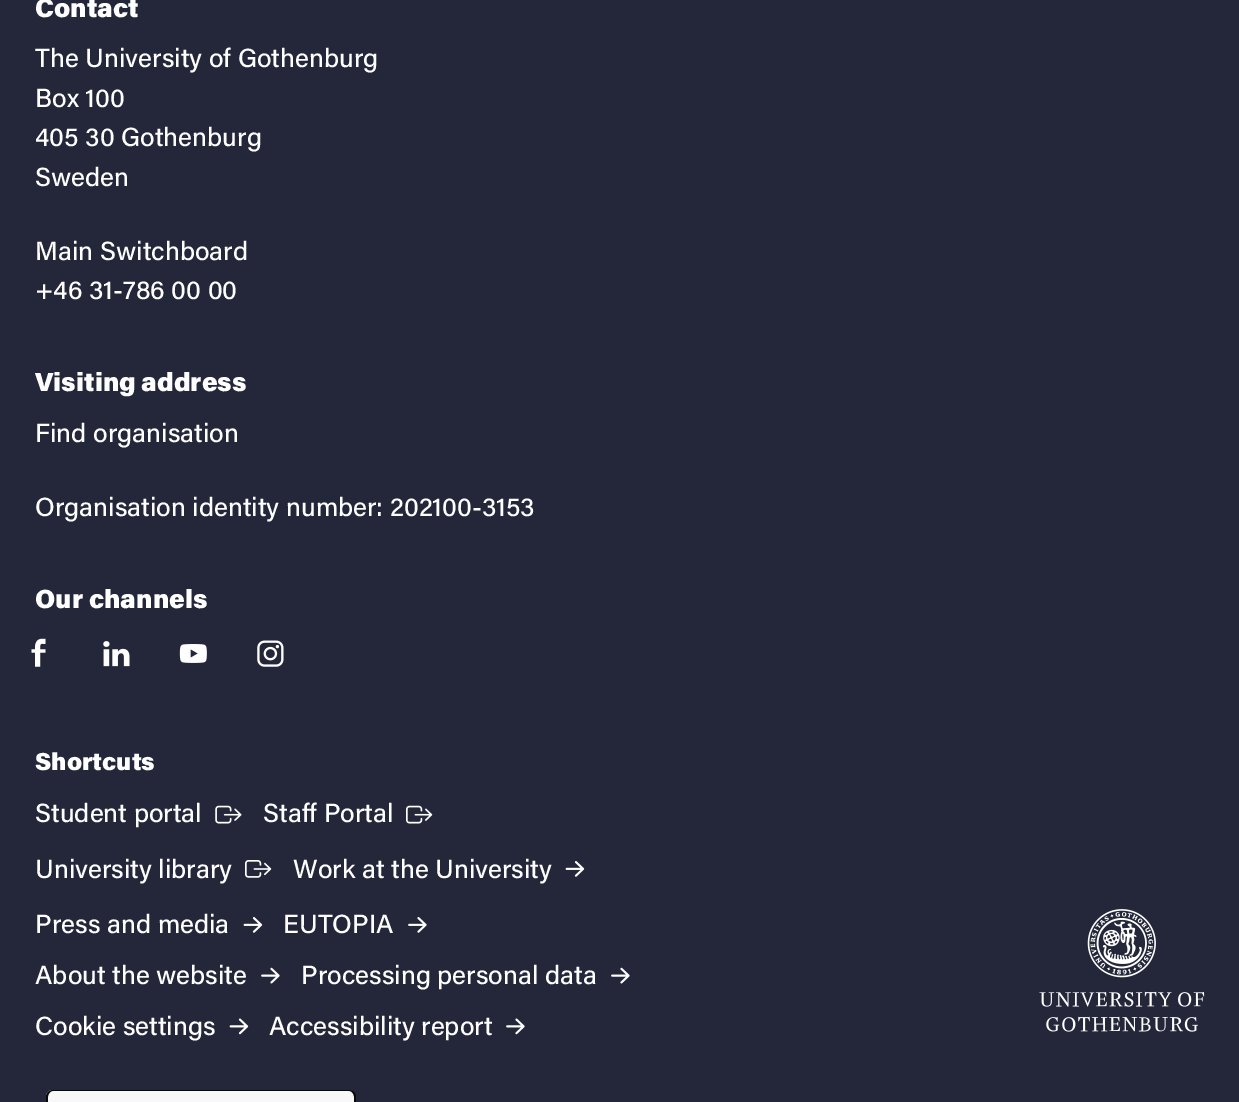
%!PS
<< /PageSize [1239 1102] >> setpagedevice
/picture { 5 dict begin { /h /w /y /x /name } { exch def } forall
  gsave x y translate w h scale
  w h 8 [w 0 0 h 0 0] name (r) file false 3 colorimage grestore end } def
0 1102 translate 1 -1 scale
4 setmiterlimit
0.141 0.153 0.227 setrgbcolor
0 0 1239 1102 rectfill
/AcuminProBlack-Black [26.25 0 0 -26.25 0 0] selectfont
0.996 setgray
35 17 moveto (Contact) show
/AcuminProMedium-Medium [26.25 0 0 -26.25 0 0] selectfont
35 67 moveto (The University of Gothenburg) show
35 107 moveto (Box 100) show
35 146 moveto (405 30 Gothenburg) show
35 186 moveto (Sweden) show
35 260 moveto (Main Switchboard) show
35 299 moveto (+46 31-786 00 00) show
/AcuminProBlack-Black [26.25 0 0 -26.25 0 0] selectfont
35 391 moveto (Visiting address) show
/AcuminProMedium-Medium [26.25 0 0 -26.25 0 0] selectfont
35 442 moveto (Find organisation) show
35 516 moveto (Organisation identity number: 202100-3153) show
/AcuminProBlack-Black [26.25 0 0 -26.25 0 0] selectfont
35 608 moveto (Our channels) show
(img1.rgb) 31 638 15 29 picture
(img2.rgb) 103 641 27 26 picture
(img3.rgb) 179 644 28 19 picture
(img4.rgb) 257 640 27 27 picture
/AcuminProBlack-Black [24.5 0 0 -24.5 0 0] selectfont
35 770 moveto (Shortcuts) show
/AcuminProMedium-Medium [26.25 0 0 -26.25 0 0] selectfont
35 822 moveto (Student portal) show
(img5.rgb) 215 805 27 19 picture
263 822 moveto (Staff Portal) show
(img6.rgb) 406 805 27 19 picture
35 878 moveto (University library) show
(img7.rgb) 245 860 27 18 picture
293 878 moveto (Work at the University) show
(img8.rgb) 565 861 20 16 picture
35 933 moveto (Press and media) show
(img8.rgb) 243 917 20 16 picture
283 933 moveto (EUTOPIA) show
(img9.rgb) 408 917 19 16 picture
35 984 moveto (About the website) show
(img10.rgb) 261 967 19 17 picture
301 984 moveto (Processing personal data) show
(img10.rgb) 611 967 19 17 picture
35 1035 moveto (Cookie settings) show
(img11.rgb) 229 1018 20 17 picture
269 1035 moveto (Accessibility report) show
(img12.rgb) 506 1018 19 17 picture
(img13.rgb) 1039 909 166 123 picture
0.973 setgray
newpath 53 1090 moveto 348 1090 lineto 352 1090 355 1093 355 1097 curveto 355 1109 lineto 46 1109 lineto 46 1097 lineto 46 1093 49 1090 53 1090 curveto closepath fill
0.039 setgray
newpath 53 1090 moveto 349 1090 lineto 353 1090 356 1093 356 1097 curveto 356 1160 lineto 46 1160 lineto 46 1097 lineto 46 1093 49 1090 53 1090 curveto closepath 53 1091 moveto 349 1091 lineto 352 1091 354 1094 354 1097 curveto 354 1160 lineto 48 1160 lineto 48 1097 lineto 48 1094 50 1091 53 1091 curveto closepath eofill
showpage
